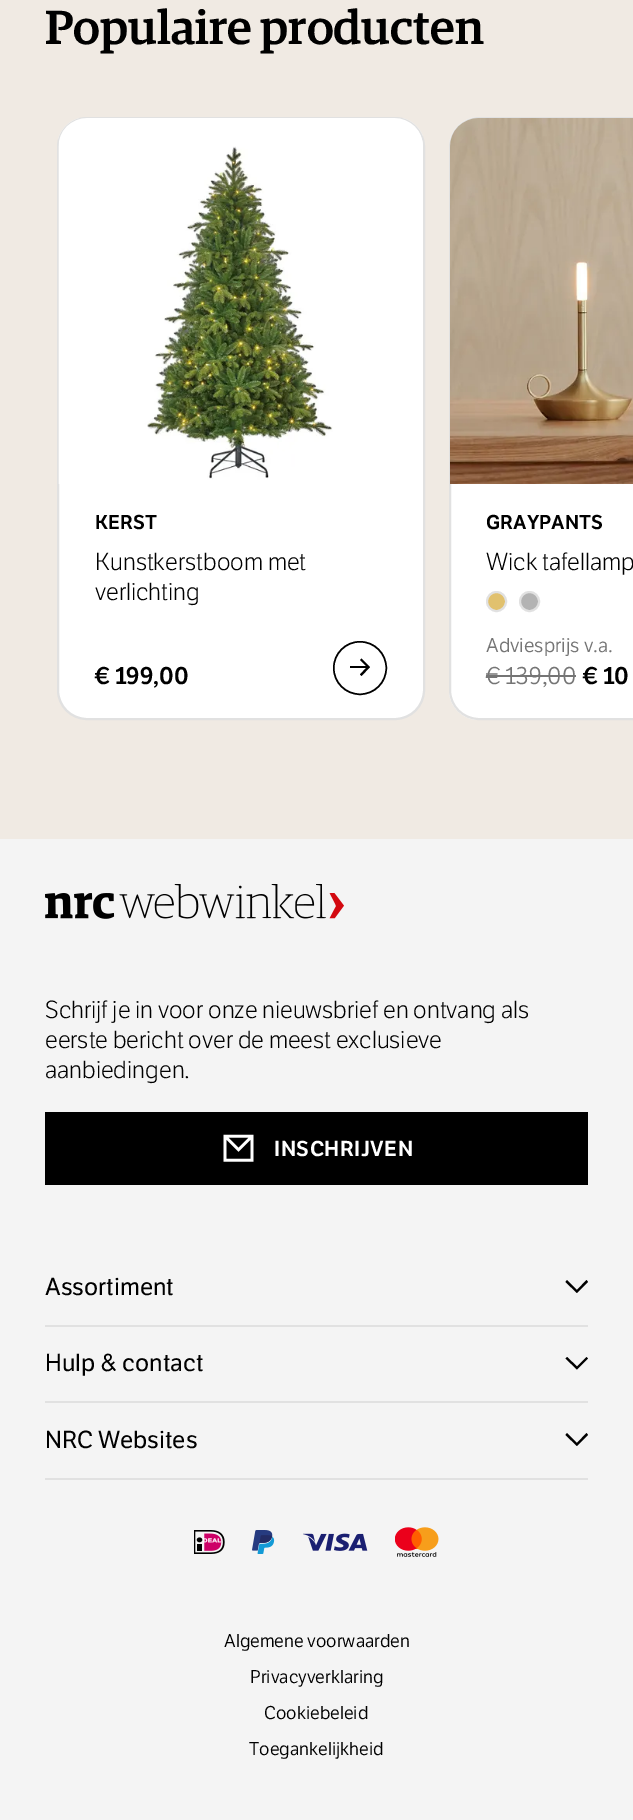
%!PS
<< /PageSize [633 1820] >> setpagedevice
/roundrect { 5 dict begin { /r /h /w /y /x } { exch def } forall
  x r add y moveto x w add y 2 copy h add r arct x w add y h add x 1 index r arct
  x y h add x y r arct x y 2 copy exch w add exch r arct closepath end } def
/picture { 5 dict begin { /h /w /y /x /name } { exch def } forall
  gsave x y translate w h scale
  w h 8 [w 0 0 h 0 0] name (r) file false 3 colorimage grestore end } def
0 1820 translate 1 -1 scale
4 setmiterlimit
0.957 setgray
0 0 633 1820 rectfill
0.941 0.918 0.89 setrgbcolor
0 0 633 839 rectfill
/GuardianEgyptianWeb-Medium [48 0 0 -48 0 0] selectfont
0 setgray
45 44 moveto (Populaire producten) show
1 setgray
58 118 366 601 29 roundrect gsave fill grestore
0.882 setgray
2 setlinewidth
stroke
(img1.rgb) 58 118 365 366 picture
/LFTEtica-SemiBold [19.5 0 0 -19.5 0 0] selectfont
0 setgray
95 529 moveto (KERST) show
/LFTEtica-ExtraLight [24 0 0 -24 0 0] selectfont
95 570 moveto (Kunstkerstboom met) show
95 600 moveto (verlichting) show
/LFTEtica-SemiBold [24 0 0 -24 0 0] selectfont
95 684 moveto (€ 199,00) show
1.5 setlinewidth
newpath 360 668 26.25 0 360 arc closepath stroke
newpath 361.5 658.5 moveto 360 660 lineto 366 666 lineto 350 666 lineto 350 668 lineto 366 668 lineto 360 674.5 lineto 361.5 676 lineto 370 667 lineto closepath eofill
1 setgray
newpath 479 117 moveto 633 117 lineto 633 720 lineto 479 720 lineto 462.5 720 449 706.5 449 690 curveto 449 147 lineto 449 130.5 462.5 117 479 117 curveto closepath fill
0.882 setgray
2 setlinewidth
450 118 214 601 29 roundrect stroke
(img2.rgb) 450 118 183 366 picture
/LFTEtica-SemiBold [19.5 0 0 -19.5 0 0] selectfont
0 setgray
486 529 moveto (GRAYPANTS) show
/LFTEtica-ExtraLight [24 0 0 -24 0 0] selectfont
486 570 moveto (Wick tafellamp) show
0.882 0.757 0.431 setrgbcolor
newpath 496.5 601.5 9.5 0 360 arc closepath gsave fill grestore
0.882 setgray
stroke
0.702 setgray
newpath 529.5 601.5 9.5 0 360 arc closepath gsave fill grestore
0.882 setgray
stroke
/LFTEtica-Light [19.5 0 0 -19.5 0 0] selectfont
0.459 setgray
486 652 moveto (Adviesprijs v.a.) show
/LFTEtica-Light [24 0 0 -24 0 0] selectfont
486 684 moveto (€ 139,00) show
486 675 90 2 rectfill
/LFTEtica-SemiBold [24 0 0 -24 0 0] selectfont
0 setgray
583 684 moveto (€ 10) show
(img3.rgb) 45 884 299 35 picture
/LFTEtica-ExtraLight [24 0 0 -24 0 0] selectfont
45 1018 moveto (Schrijf je in voor onze nieuwsbrief en ontvang als) show
45 1048 moveto (eerste bericht over de meest exclusieve) show
45 1078 moveto (aanbiedingen.) show
45 1112 543 73 rectfill
(img4.rgb) 223 1134 31 28 picture
/LFTEtica-SemiBold [21 0 0 -21 0 0] selectfont
1 setgray
274 1156 moveto 0.5 0 (INSCHRIJVEN) ashow
0.882 setgray
45 1325 543 2 rectfill
/LFTEtica-Regular [24 0 0 -24 0 0] selectfont
0 setgray
45 1295 moveto (Assortiment) show
newpath 586.5 1280 moveto 577 1290 lineto 567 1280 lineto 565.5 1282 lineto 577 1293 lineto 588 1282 lineto closepath eofill
0.882 setgray
45 1401 543 2 rectfill
0 setgray
45 1371 moveto (Hulp & contact) show
newpath 586.5 1357 moveto 577 1366.5 lineto 567 1357 lineto 565.5 1358.5 lineto 577 1369.5 lineto 588 1358.5 lineto closepath eofill
0.882 setgray
45 1478 543 2 rectfill
0 setgray
45 1448 moveto (NRC Websites) show
newpath 586.5 1433 moveto 577 1443 lineto 567 1433 lineto 565.5 1435 lineto 577 1446 lineto 588 1435 lineto closepath eofill
(img5.rgb) 194 1530 31 24 picture
(img6.rgb) 252 1530 23 24 picture
(img7.rgb) 303 1533 65 18 picture
(img8.rgb) 395 1527 44 30 picture
/LFTEtica-Light [18 0 0 -18 0 0] selectfont
224 1647 moveto (Algemene voorwaarden) show
250 1683 moveto (Privacyverklaring) show
264 1719 moveto (Cookiebeleid) show
249 1755 moveto (Toegankelijkheid) show
showpage
